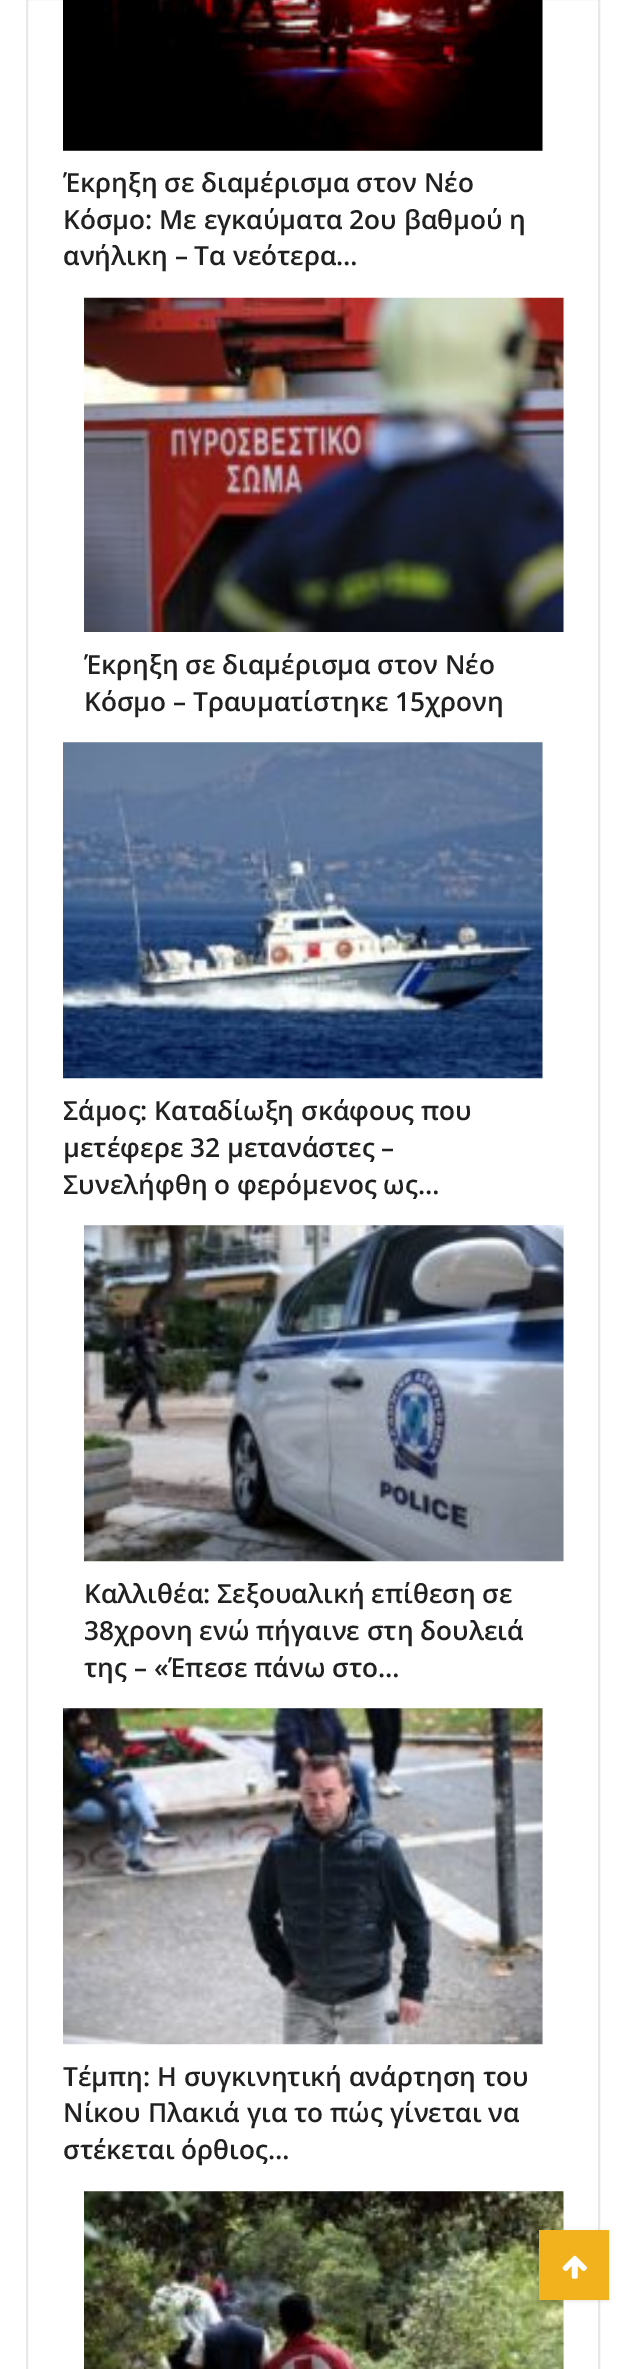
%!PS
<< /PageSize [625 2369] /PageUsesTransparency true >> setpagedevice
/alpha { dup .setfillconstantalpha .setstrokeconstantalpha } def
/roundrect { 5 dict begin { /r /h /w /y /x } { exch def } forall
  x r add y moveto x w add y 2 copy h add r arct x w add y h add x 1 index r arct
  x y h add x y r arct x y 2 copy exch w add exch r arct closepath end } def
/shadow { 12 dict begin { /a /b /q /h /w /y /x } { exch def } forall gsave /was 0 def
  9 -2 -9 { dup b mul 4 div /e exch def 1 sub .425 mul 2.718 exch exp 1 add a .99 .min exch div /now exch def
    1 1 now sub 1 was sub div sub alpha /was now def
    w h .min e 2 mul add 0 gt { x e sub y e sub w e 2 mul add h e 2 mul add
      q e add b .6 mul add w h .min 2 div e add .min 0 .max roundrect fill } if } for grestore end } def
/picture { 5 dict begin { /h /w /y /x /name } { exch def } forall
  gsave x y translate w h scale
  w h 8 [w 0 0 h 0 0] name (r) file false 3 colorimage grestore end } def
0 .pushpdf14devicefilter
0 2369 translate 1 -1 scale
4 setmiterlimit
1 setgray
0 0 625 2369 rectfill
0.91 setgray
2 setlinewidth
27 -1 572 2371 rectstroke
0.961 setgray
63 0 480 151 rectfill
(img1.rgb) 63 0 480 151 picture
/OpenSans-SemiBold [26.25 0 0 -26.25 0 0] selectfont
0.129 setgray
63 192 moveto (Έκρηξη σε διαμέρισμα στον Νέο) show
63 229 moveto (Κόσμο: Με εγκαύματα 2ου βαθμού η) show
63 265 moveto (ανήλικη – Τα νεότερα…) show
0.961 setgray
563 298 1 334 rectfill
(img2.rgb) 84 297 480 335 picture
0.129 setgray
84 674 moveto (Έκρηξη σε διαμέρισμα στον Νέο) show
84 711 moveto (Κόσμο – Τραυματίστηκε 15χρονη) show
0.961 setgray
63 742 480 336 rectfill
(img3.rgb) 63 742 480 337 picture
0.129 setgray
63 1120 moveto (Σάμος: Καταδίωξη σκάφους που) show
63 1157 moveto (μετέφερε 32 μετανάστες –) show
63 1194 moveto (Συνελήφθη ο φερόμενος ως…) show
0.961 setgray
84 1225 480 336 rectfill
(img4.rgb) 84 1225 480 337 picture
0.129 setgray
84 1603 moveto (Καλλιθέα: Σεξουαλική επίθεση σε) show
84 1640 moveto (38χρονη ενώ πήγαινε στη δουλειά) show
84 1677 moveto (της – «Έπεσε πάνω στο…) show
0.961 setgray
63 1708 480 336 rectfill
(img5.rgb) 63 1708 480 337 picture
0.129 setgray
63 2086 moveto (Τέμπη: Η συγκινητική ανάρτηση του) show
63 2122 moveto (Νίκου Πλακιά για το πώς γίνεται να) show
63 2159 moveto (στέκεται όρθιος…) show
0.961 setgray
84 2191 480 178 rectfill
(img6.rgb) 84 2191 480 178 picture
0 setgray
539 2231 70 70 0 2 0.09 shadow
0.945 0.698 0.114 setrgbcolor
539 2230 70 70 rectfill
(img7.rgb) 562 2255 25 24 picture
.poppdf14devicefilter showpage
